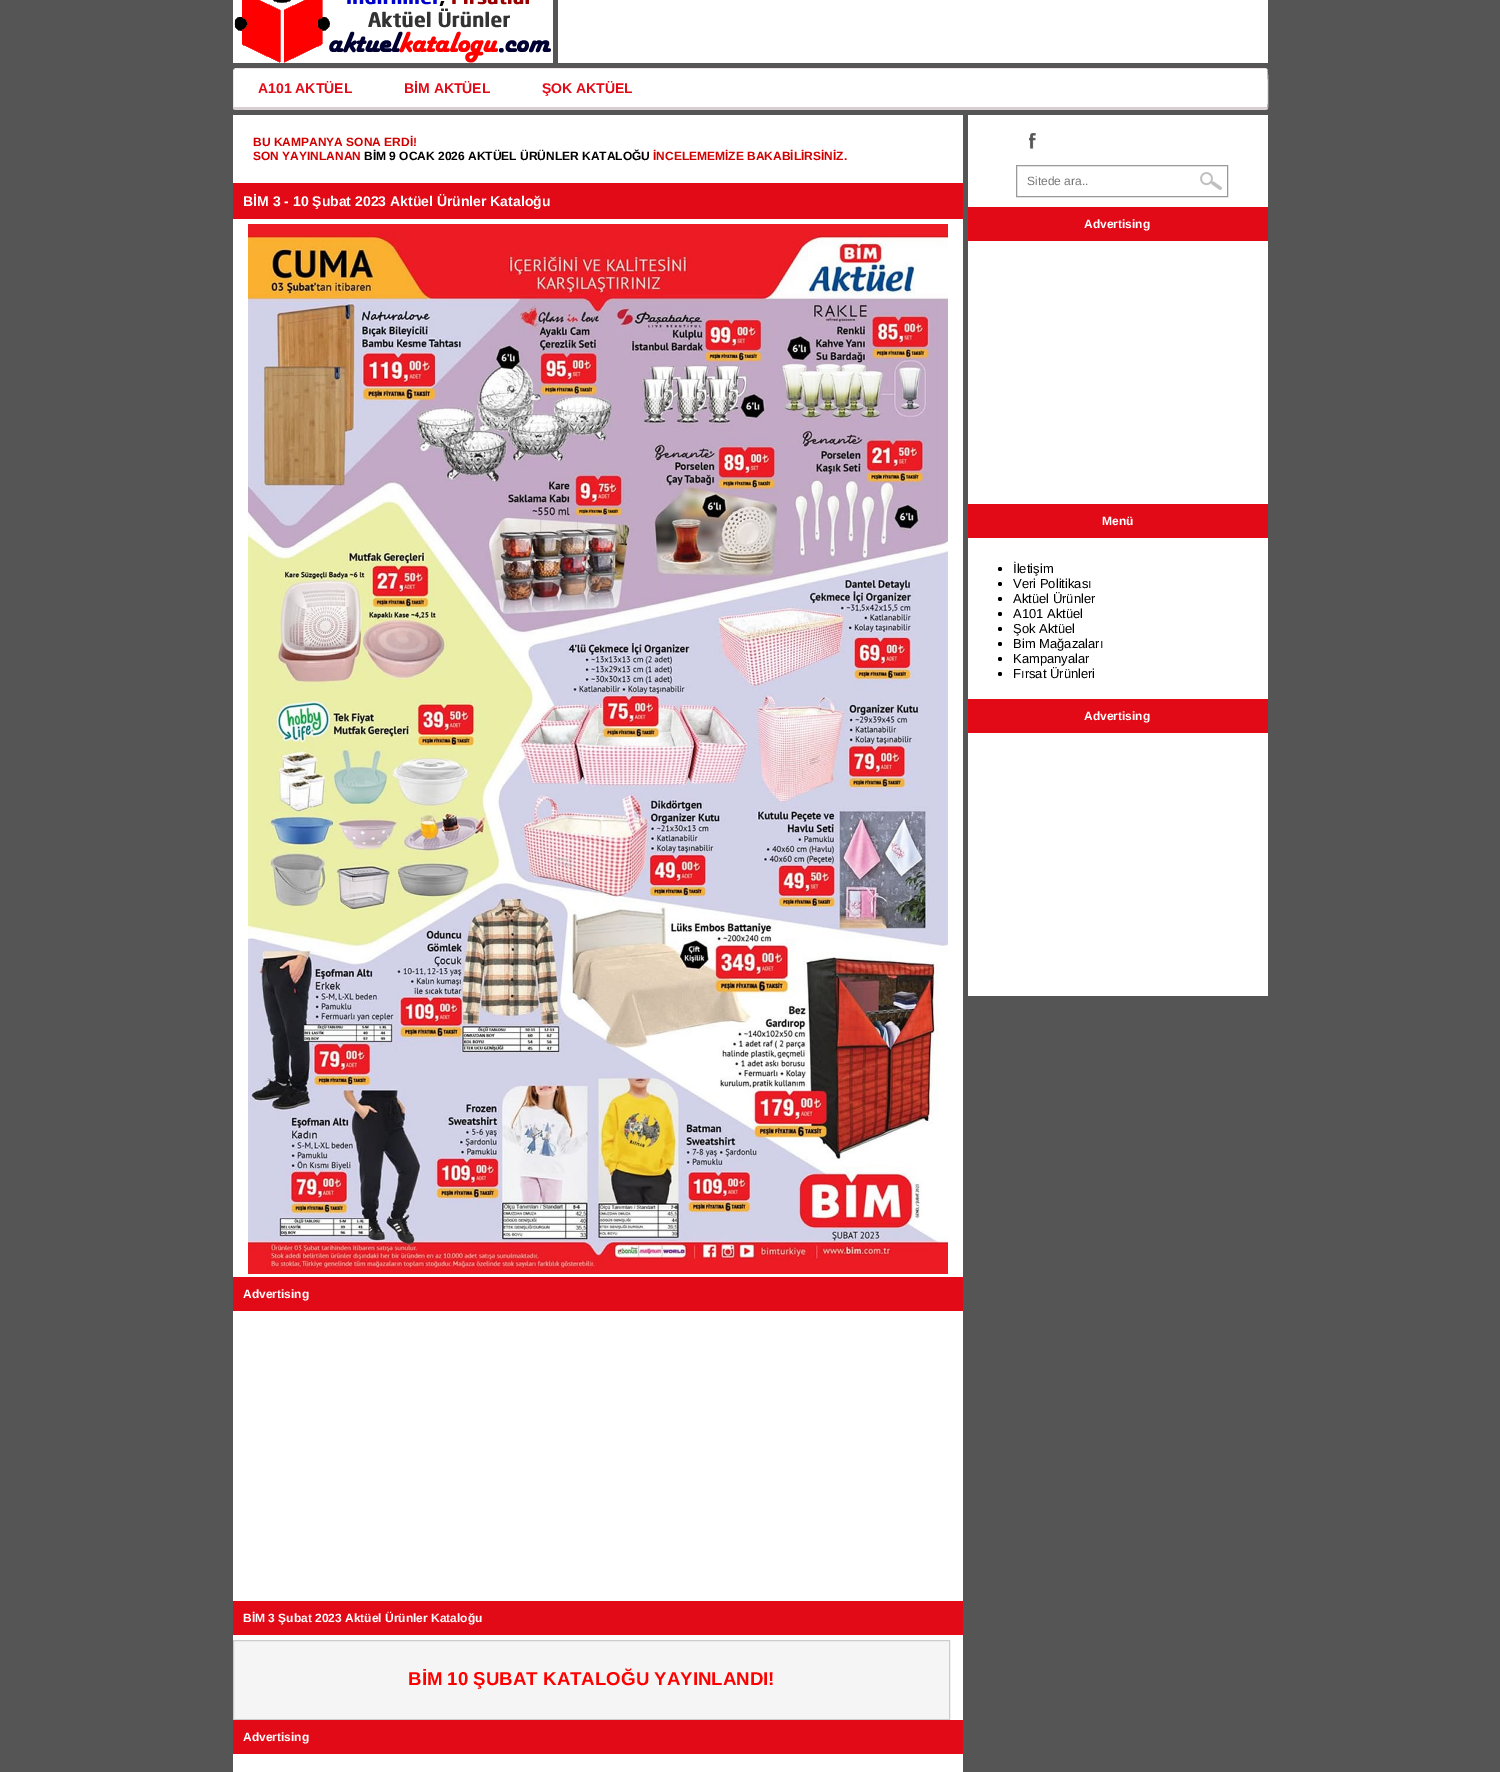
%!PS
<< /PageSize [1500 1772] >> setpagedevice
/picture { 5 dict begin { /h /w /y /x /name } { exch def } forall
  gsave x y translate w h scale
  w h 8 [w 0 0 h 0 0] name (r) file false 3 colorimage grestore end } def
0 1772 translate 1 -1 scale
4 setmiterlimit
0.333 setgray
0 0 1500 1772 rectfill
1 setgray
233 0 320 63 rectfill
(img1.rgb) 234 0 317 63 picture
558 0 710 63 rectfill
newpath 235 69 moveto 1266 69 lineto 1267 69 1267 69 1267 70 curveto 1267 107 lineto 234 107 lineto 234 70 lineto closepath fill
0.925 0.902 0.91 setrgbcolor
newpath 235 68 moveto 234 69 lineto 234 70 lineto 235 69 lineto 1267 69 lineto 1266 68 lineto closepath fill
newpath 1268 108 moveto 1268 103 1269 70 1267 69 curveto 1268 70 1266 104 1268 109 curveto closepath fill
0.851 0.808 0.824 setrgbcolor
newpath 235 110 moveto 1266 110 lineto 1268 109 lineto 1267 107 lineto 234 107 lineto 233 109 lineto closepath fill
0.925 0.902 0.91 setrgbcolor
newpath 233 70 moveto 233 109 lineto 234 107 lineto 234 70 lineto 234 69 lineto closepath fill
/LiberationSans-Bold [14 0 0 -14 0 0] selectfont
0.886 0.039 0.09 setrgbcolor
258 93 moveto (A101 AKTÜEL) show
404 93 moveto (BİM AKTÜEL) show
542 93 moveto (ŞOK AKTÜEL) show
1 setgray
233 115 730 1657 rectfill
/LiberationSans-Bold [12 0 0 -12 0 0] selectfont
0.82 0 0 setrgbcolor
253 146 moveto (BU KAMPANYA SONA ERDİ!) show
253 160 moveto (SON YAYINLANAN) show
0 setgray
364 160 moveto (BİM 9 OCAK 2026 AKTÜEL ÜRÜNLER KATALOĞU) show
0.82 0 0 setrgbcolor
653 160 moveto (İNCELEMEMİZE BAKABİLİRSİNİZ.) show
0.886 0.039 0.09 setrgbcolor
233 183 730 36 rectfill
/LiberationSans-Bold [14 0 0 -14 0 0] selectfont
1 setgray
243 206 moveto (BİM 3 - 10 Şubat 2023 Aktüel Ürünler Kataloğu) show
(img2.rgb) 248 224 700 1050 picture
0.886 0.039 0.09 setrgbcolor
233 1277 730 34 rectfill
/LiberationSans-Bold [12 0 0 -12 0 0] selectfont
1 setgray
243 1298 moveto (Advertising) show
0.886 0.039 0.09 setrgbcolor
233 1601 730 34 rectfill
1 setgray
243 1622 moveto (BİM 3 Şubat 2023 Aktüel Ürünler Kataloğu) show
0.961 setgray
newpath 233.5 1640.5 moveto 949.5 1640.5 lineto 949.5 1719.5 lineto 233.5 1719.5 lineto closepath gsave fill grestore
0.8 setgray
stroke
/LiberationSans-Bold [18.7 0 0 -18.7 0 0] selectfont
1 0 0 setrgbcolor
408 1685 moveto (BİM 10 ŞUBAT KATALOĞU YAYINLANDI!) show
0.886 0.039 0.09 setrgbcolor
233 1720 730 34 rectfill
/LiberationSans-Bold [12 0 0 -12 0 0] selectfont
1 setgray
243 1741 moveto (Advertising) show
968 115 300 881 rectfill
(img3.rgb) 1029 133 7 16 picture
(img4.rgb) 1200 172 22 18 picture
0.6 setgray
1016.5 165.5 211 31 rectstroke
/LiberationSans-Regular [12 0 0 -12 0 0] selectfont
0.467 setgray
1027 185 moveto (Sitede ara..) show
0.886 0.039 0.09 setrgbcolor
968 207 300 34 rectfill
/LiberationSans-Bold [12 0 0 -12 0 0] selectfont
1 setgray
1084 228 moveto (Advertising) show
0.886 0.039 0.09 setrgbcolor
968 504 300 34 rectfill
1 setgray
1102 525 moveto (Menü) show
0 setgray
newpath 1000 569 2 0 360 arc closepath fill
/LiberationSans-Regular [13 0 0 -13 0 0] selectfont
1013 573 moveto (İletişim) show
newpath 1000 584 2 0 360 arc closepath fill
1013 588 moveto (Veri Politikası) show
newpath 1000 599 2 0 360 arc closepath fill
1013 603 moveto (Aktüel Ürünler) show
newpath 1000 614 2 0 360 arc closepath fill
1013 618 moveto (A101 Aktüel) show
newpath 1000 629 2 0 360 arc closepath fill
1013 633 moveto (Şok Aktüel) show
newpath 1000 644 2 0 360 arc closepath fill
1013 648 moveto (Bim Mağazaları) show
newpath 1000 659 2 0 360 arc closepath fill
1013 663 moveto (Kampanyalar) show
newpath 1000 674 2 0 360 arc closepath fill
1013 678 moveto (Fırsat Ürünleri) show
0.886 0.039 0.09 setrgbcolor
968 699 300 34 rectfill
/LiberationSans-Bold [12 0 0 -12 0 0] selectfont
1 setgray
1084 720 moveto (Advertising) show
showpage
